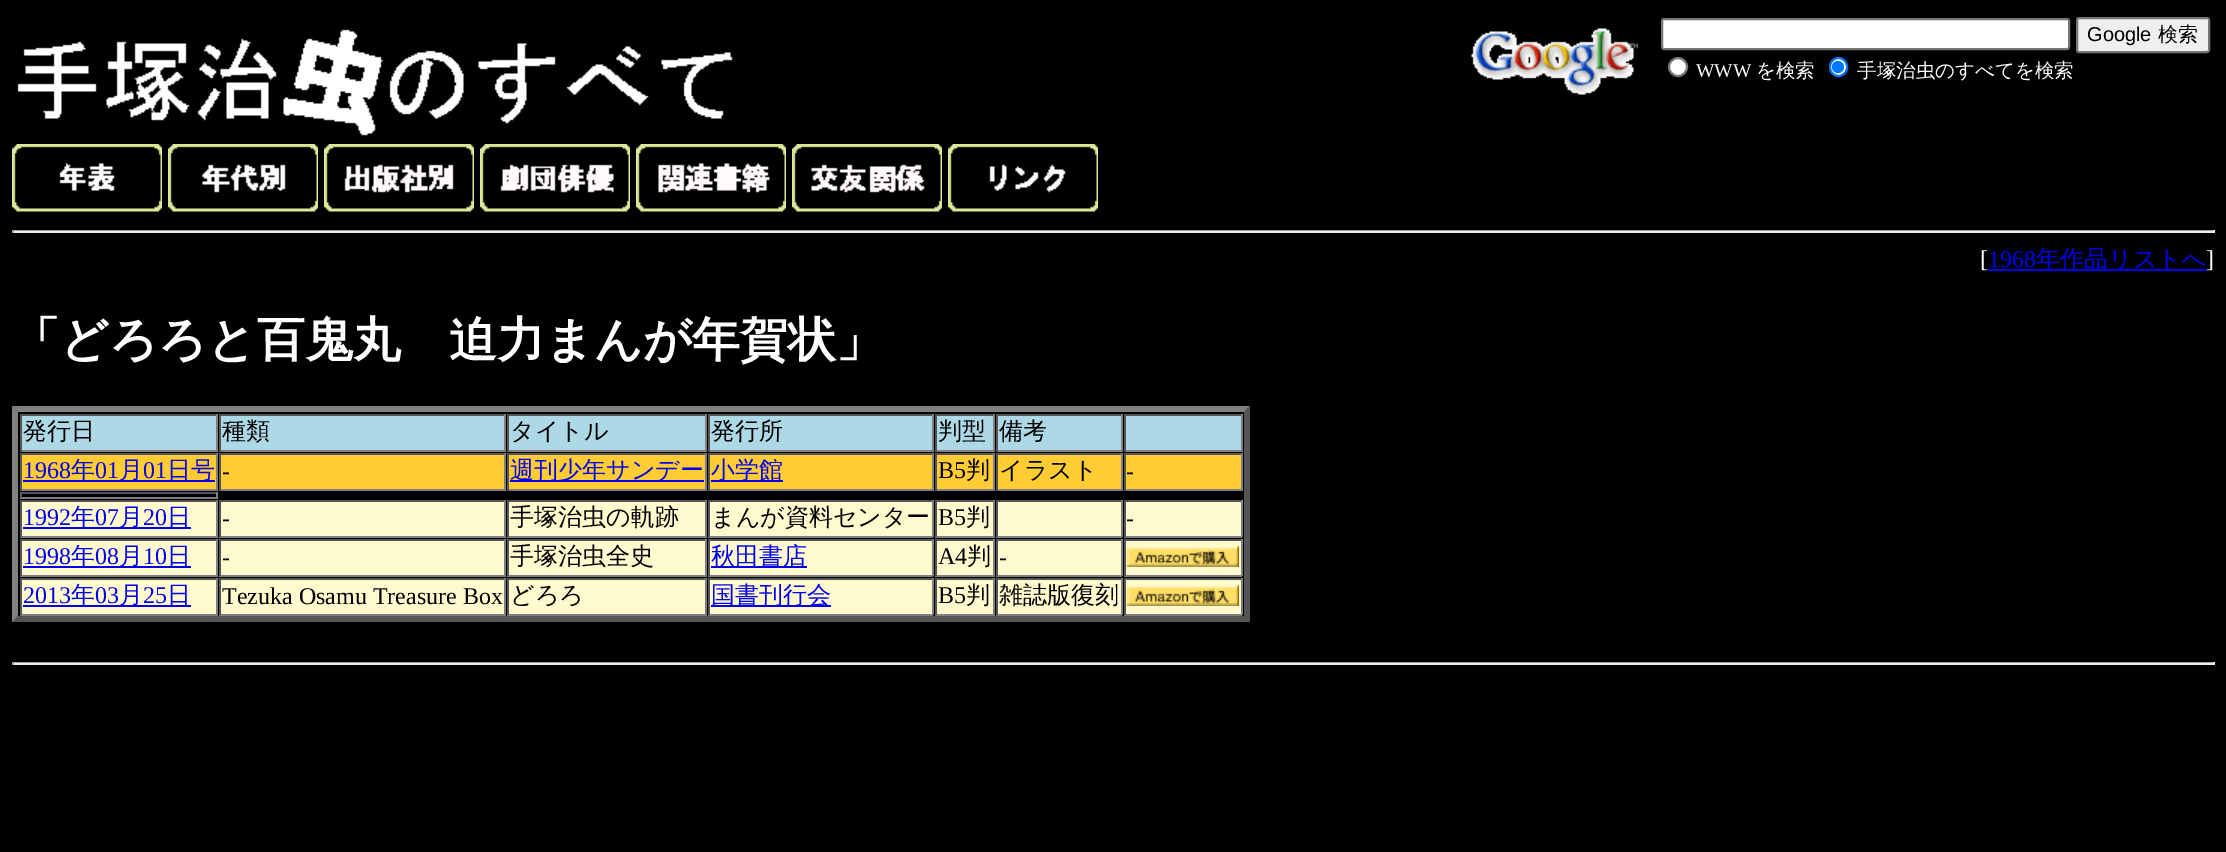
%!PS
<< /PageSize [2226 852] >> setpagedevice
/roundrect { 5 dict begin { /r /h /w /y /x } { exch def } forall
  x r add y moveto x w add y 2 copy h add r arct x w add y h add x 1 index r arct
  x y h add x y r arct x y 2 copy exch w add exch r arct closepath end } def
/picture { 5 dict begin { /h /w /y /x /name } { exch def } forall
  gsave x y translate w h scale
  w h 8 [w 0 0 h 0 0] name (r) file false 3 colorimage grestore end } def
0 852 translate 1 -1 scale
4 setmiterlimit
0 setgray
0 0 2226 852 rectfill
(img1.rgb) 17 29 716 107 picture
(img2.rgb) 1471 28 168 67 picture
1 setgray
1662 19 407 30 2 roundrect gsave fill grestore
0.463 setgray
2 setlinewidth
stroke
0.937 setgray
2077 18 132 34 2 roundrect gsave fill grestore
0.463 setgray
stroke
/LiberationSans-Regular [20 0 0 -20 0 0] selectfont
0 setgray
2087 41 moveto (Google) show
/WenQuanYiZenHei-Medium [20 0 0 -20 0 0] selectfont
2158 41 moveto (検索) show
1 setgray
newpath 1678 67 9 0 360 arc closepath gsave fill grestore
0.463 setgray
stroke
/LiberationSerif-Regular [19.5 0 0 -19.5 0 0] selectfont
1 setgray
1696 77 moveto (WWW) show
/WenQuanYiZenHei-Medium [19.5 0 0 -19.5 0 0] selectfont
1756 77 moveto (を検索) show
1830 58 17 18 8.5 roundrect gsave fill grestore
0 0.459 1 setrgbcolor
stroke
newpath 1838 67 6 0 360 arc closepath fill
1 setgray
1857 77 moveto (手塚治虫のすべてを検索) show
(img3.rgb) 12 144 150 68 picture
(img4.rgb) 168 144 150 68 picture
(img5.rgb) 324 144 150 68 picture
(img6.rgb) 480 144 150 68 picture
(img7.rgb) 636 144 150 68 picture
(img8.rgb) 792 144 150 68 picture
(img9.rgb) 948 144 150 68 picture
0.624 setgray
12 230 2202 1 rectfill
0.933 setgray
2213 230 2 3 rectfill
12 231 2202 2 rectfill
0.624 setgray
12 230 2 3 rectfill
/LiberationSerif-Regular [24 0 0 -24 0 0] selectfont
1 setgray
1980 267 moveto ([) show
0 0 0.933 setrgbcolor
1988 267 moveto (1968) show
1988 269 219 2 rectfill
/WenQuanYiZenHei-Medium [24 0 0 -24 0 0] selectfont
2036 267 moveto (年作品リストへ) show
/LiberationSerif-Regular [24 0 0 -24 0 0] selectfont
1 setgray
2206 267 moveto (]) show
/WenQuanYiZenHei-Bold [48 0 0 -48 0 0] selectfont
12 356 moveto (「どろろと百鬼丸　迫力まんが年賀状」) show
0.502 setgray
newpath 12 406 moveto 1250 406 lineto 1244 412 lineto 18 412 lineto closepath fill
0.333 setgray
newpath 1250 406 moveto 1250 622 lineto 1244 616 lineto 1244 412 lineto closepath fill
newpath 1250 622 moveto 12 622 lineto 18 616 lineto 1244 616 lineto closepath fill
0.502 setgray
newpath 12 622 moveto 12 406 lineto 18 412 lineto 18 616 lineto closepath fill
0.678 0.847 0.902 setrgbcolor
22 416 194 34 rectfill
0.333 setgray
20 414 198 2 rectfill
0.502 setgray
216 414 2 38 rectfill
20 450 198 2 rectfill
0.333 setgray
20 414 2 38 rectfill
/WenQuanYiZenHei-Medium [24 0 0 -24 0 0] selectfont
0 setgray
23 439 moveto (発行日) show
0.678 0.847 0.902 setrgbcolor
221 416 283 34 rectfill
0.333 setgray
219 414 287 2 rectfill
0.502 setgray
504 414 2 38 rectfill
219 450 287 2 rectfill
0.333 setgray
219 414 2 38 rectfill
0 setgray
222 439 moveto (種類) show
0.678 0.847 0.902 setrgbcolor
509 416 196 34 rectfill
0.333 setgray
507 414 200 2 rectfill
0.502 setgray
705 414 2 38 rectfill
507 450 200 2 rectfill
0.333 setgray
507 414 2 38 rectfill
0 setgray
510 439 moveto (タイトル) show
0.678 0.847 0.902 setrgbcolor
710 416 222 34 rectfill
0.333 setgray
708 414 225 2 rectfill
0.502 setgray
932 414 2 38 rectfill
708 450 225 2 rectfill
0.333 setgray
708 414 2 38 rectfill
0 setgray
711 439 moveto (発行所) show
0.678 0.847 0.902 setrgbcolor
937 416 56 34 rectfill
0.333 setgray
935 414 60 2 rectfill
0.502 setgray
993 414 2 38 rectfill
935 450 60 2 rectfill
0.333 setgray
935 414 2 38 rectfill
0 setgray
938 439 moveto (判型) show
0.678 0.847 0.902 setrgbcolor
998 416 123 34 rectfill
0.333 setgray
996 414 126 2 rectfill
0.502 setgray
1121 414 2 38 rectfill
996 450 126 2 rectfill
0.333 setgray
996 414 2 38 rectfill
0 setgray
999 439 moveto (備考) show
0.678 0.847 0.902 setrgbcolor
1126 416 115 34 rectfill
0.333 setgray
1124 414 118 2 rectfill
0.502 setgray
1241 414 2 38 rectfill
1124 450 118 2 rectfill
0.333 setgray
1124 414 2 38 rectfill
1 0.8 0.2 setrgbcolor
22 455 194 34 rectfill
0.333 setgray
20 453 198 2 rectfill
0.502 setgray
216 453 2 38 rectfill
20 489 198 2 rectfill
0.333 setgray
20 453 2 38 rectfill
/LiberationSerif-Regular [24 0 0 -24 0 0] selectfont
0 0 0.933 setrgbcolor
23 478 moveto (1968) show
23 480 192 2 rectfill
/WenQuanYiZenHei-Medium [24 0 0 -24 0 0] selectfont
71 478 moveto (年) show
/LiberationSerif-Regular [24 0 0 -24 0 0] selectfont
95 478 moveto (01) show
/WenQuanYiZenHei-Medium [24 0 0 -24 0 0] selectfont
119 478 moveto (月) show
/LiberationSerif-Regular [24 0 0 -24 0 0] selectfont
143 478 moveto (01) show
/WenQuanYiZenHei-Medium [24 0 0 -24 0 0] selectfont
167 478 moveto (日号) show
1 0.8 0.2 setrgbcolor
221 455 283 34 rectfill
0.333 setgray
219 453 287 2 rectfill
0.502 setgray
504 453 2 38 rectfill
219 489 287 2 rectfill
0.333 setgray
219 453 2 38 rectfill
/LiberationSerif-Regular [24 0 0 -24 0 0] selectfont
0 setgray
222 479 moveto (-) show
1 0.8 0.2 setrgbcolor
509 455 196 34 rectfill
0.333 setgray
507 453 200 2 rectfill
0.502 setgray
705 453 2 38 rectfill
507 489 200 2 rectfill
0.333 setgray
507 453 2 38 rectfill
0 0 0.933 setrgbcolor
510 480 194 2 rectfill
/WenQuanYiZenHei-Medium [24 0 0 -24 0 0] selectfont
510 478 moveto (週刊少年サンデー) show
1 0.8 0.2 setrgbcolor
710 455 222 34 rectfill
0.333 setgray
708 453 225 2 rectfill
0.502 setgray
932 453 2 38 rectfill
708 489 225 2 rectfill
0.333 setgray
708 453 2 38 rectfill
0 0 0.933 setrgbcolor
711 480 72 2 rectfill
711 478 moveto (小学館) show
1 0.8 0.2 setrgbcolor
937 455 56 34 rectfill
0.333 setgray
935 453 60 2 rectfill
0.502 setgray
993 453 2 38 rectfill
935 489 60 2 rectfill
0.333 setgray
935 453 2 38 rectfill
/LiberationSerif-Regular [24 0 0 -24 0 0] selectfont
0 setgray
938 478 moveto (B5) show
/WenQuanYiZenHei-Medium [24 0 0 -24 0 0] selectfont
966 478 moveto (判) show
1 0.8 0.2 setrgbcolor
998 455 123 34 rectfill
0.333 setgray
996 453 126 2 rectfill
0.502 setgray
1121 453 2 38 rectfill
996 489 126 2 rectfill
0.333 setgray
996 453 2 38 rectfill
0 setgray
999 478 moveto (イラスト) show
1 0.8 0.2 setrgbcolor
1126 455 115 34 rectfill
0.333 setgray
1124 453 118 2 rectfill
0.502 setgray
1241 453 2 38 rectfill
1124 489 118 2 rectfill
0.333 setgray
1124 453 2 38 rectfill
/LiberationSerif-Regular [24 0 0 -24 0 0] selectfont
0 setgray
1126 479 moveto (-) show
0.333 setgray
20 492 198 2 rectfill
0.502 setgray
216 492 2 6 rectfill
20 497 198 2 rectfill
0.333 setgray
20 492 2 6 rectfill
1 0.98 0.804 setrgbcolor
22 502 194 34 rectfill
0.333 setgray
20 500 198 2 rectfill
0.502 setgray
216 500 2 37 rectfill
20 536 198 2 rectfill
0.333 setgray
20 500 2 37 rectfill
0 0 0.933 setrgbcolor
23 525 moveto (1992) show
23 527 168 2 rectfill
/WenQuanYiZenHei-Medium [24 0 0 -24 0 0] selectfont
71 525 moveto (年) show
/LiberationSerif-Regular [24 0 0 -24 0 0] selectfont
95 525 moveto (07) show
/WenQuanYiZenHei-Medium [24 0 0 -24 0 0] selectfont
119 525 moveto (月) show
/LiberationSerif-Regular [24 0 0 -24 0 0] selectfont
143 525 moveto (20) show
/WenQuanYiZenHei-Medium [24 0 0 -24 0 0] selectfont
167 525 moveto (日) show
1 0.98 0.804 setrgbcolor
221 502 283 34 rectfill
0.333 setgray
219 500 287 2 rectfill
0.502 setgray
504 500 2 37 rectfill
219 536 287 2 rectfill
0.333 setgray
219 500 2 37 rectfill
/LiberationSerif-Regular [24 0 0 -24 0 0] selectfont
0 setgray
222 526 moveto (-) show
1 0.98 0.804 setrgbcolor
509 502 196 34 rectfill
0.333 setgray
507 500 200 2 rectfill
0.502 setgray
705 500 2 37 rectfill
507 536 200 2 rectfill
0.333 setgray
507 500 2 37 rectfill
/WenQuanYiZenHei-Medium [24 0 0 -24 0 0] selectfont
0 setgray
510 525 moveto (手塚治虫の軌跡) show
1 0.98 0.804 setrgbcolor
710 502 222 34 rectfill
0.333 setgray
708 500 225 2 rectfill
0.502 setgray
932 500 2 37 rectfill
708 536 225 2 rectfill
0.333 setgray
708 500 2 37 rectfill
0 setgray
711 525 moveto (まんが資料センター) show
1 0.98 0.804 setrgbcolor
937 502 56 34 rectfill
0.333 setgray
935 500 60 2 rectfill
0.502 setgray
993 500 2 37 rectfill
935 536 60 2 rectfill
0.333 setgray
935 500 2 37 rectfill
/LiberationSerif-Regular [24 0 0 -24 0 0] selectfont
0 setgray
938 525 moveto (B5) show
/WenQuanYiZenHei-Medium [24 0 0 -24 0 0] selectfont
966 525 moveto (判) show
1 0.98 0.804 setrgbcolor
998 502 123 34 rectfill
0.333 setgray
996 500 126 2 rectfill
0.502 setgray
1121 500 2 37 rectfill
996 536 126 2 rectfill
0.333 setgray
996 500 2 37 rectfill
1 0.98 0.804 setrgbcolor
1126 502 115 34 rectfill
0.333 setgray
1124 500 118 2 rectfill
0.502 setgray
1241 500 2 37 rectfill
1124 536 118 2 rectfill
0.333 setgray
1124 500 2 37 rectfill
/LiberationSerif-Regular [24 0 0 -24 0 0] selectfont
0 setgray
1126 526 moveto (-) show
1 0.98 0.804 setrgbcolor
22 541 194 34 rectfill
0.333 setgray
20 539 198 2 rectfill
0.502 setgray
216 539 2 37 rectfill
20 575 198 2 rectfill
0.333 setgray
20 539 2 37 rectfill
0 0 0.933 setrgbcolor
23 564 moveto (1998) show
23 566 168 2 rectfill
/WenQuanYiZenHei-Medium [24 0 0 -24 0 0] selectfont
71 564 moveto (年) show
/LiberationSerif-Regular [24 0 0 -24 0 0] selectfont
95 564 moveto (08) show
/WenQuanYiZenHei-Medium [24 0 0 -24 0 0] selectfont
119 564 moveto (月) show
/LiberationSerif-Regular [24 0 0 -24 0 0] selectfont
143 564 moveto (10) show
/WenQuanYiZenHei-Medium [24 0 0 -24 0 0] selectfont
167 564 moveto (日) show
1 0.98 0.804 setrgbcolor
221 541 283 34 rectfill
0.333 setgray
219 539 287 2 rectfill
0.502 setgray
504 539 2 37 rectfill
219 575 287 2 rectfill
0.333 setgray
219 539 2 37 rectfill
/LiberationSerif-Regular [24 0 0 -24 0 0] selectfont
0 setgray
222 565 moveto (-) show
1 0.98 0.804 setrgbcolor
509 541 196 34 rectfill
0.333 setgray
507 539 200 2 rectfill
0.502 setgray
705 539 2 37 rectfill
507 575 200 2 rectfill
0.333 setgray
507 539 2 37 rectfill
/WenQuanYiZenHei-Medium [24 0 0 -24 0 0] selectfont
0 setgray
510 564 moveto (手塚治虫全史) show
1 0.98 0.804 setrgbcolor
710 541 222 34 rectfill
0.333 setgray
708 539 225 2 rectfill
0.502 setgray
932 539 2 37 rectfill
708 575 225 2 rectfill
0.333 setgray
708 539 2 37 rectfill
0 0 0.933 setrgbcolor
711 566 96 2 rectfill
711 564 moveto (秋田書店) show
1 0.98 0.804 setrgbcolor
937 541 56 34 rectfill
0.333 setgray
935 539 60 2 rectfill
0.502 setgray
993 539 2 37 rectfill
935 575 60 2 rectfill
0.333 setgray
935 539 2 37 rectfill
/LiberationSerif-Regular [24 0 0 -24 0 0] selectfont
0 setgray
938 564 moveto (A4) show
/WenQuanYiZenHei-Medium [24 0 0 -24 0 0] selectfont
967 564 moveto (判) show
1 0.98 0.804 setrgbcolor
998 541 123 34 rectfill
0.333 setgray
996 539 126 2 rectfill
0.502 setgray
1121 539 2 37 rectfill
996 575 126 2 rectfill
0.333 setgray
996 539 2 37 rectfill
/LiberationSerif-Regular [24 0 0 -24 0 0] selectfont
0 setgray
999 565 moveto (-) show
1 0.98 0.804 setrgbcolor
1126 541 115 34 rectfill
0.333 setgray
1124 539 118 2 rectfill
0.502 setgray
1241 539 2 37 rectfill
1124 575 118 2 rectfill
0.333 setgray
1124 539 2 37 rectfill
(img10.rgb) 1126 546 113 21 picture
1 0.98 0.804 setrgbcolor
22 580 194 34 rectfill
0.333 setgray
20 578 198 2 rectfill
0.502 setgray
216 578 2 37 rectfill
20 614 198 2 rectfill
0.333 setgray
20 578 2 37 rectfill
0 0 0.933 setrgbcolor
23 603 moveto (2013) show
23 605 168 2 rectfill
/WenQuanYiZenHei-Medium [24 0 0 -24 0 0] selectfont
71 603 moveto (年) show
/LiberationSerif-Regular [24 0 0 -24 0 0] selectfont
95 603 moveto (03) show
/WenQuanYiZenHei-Medium [24 0 0 -24 0 0] selectfont
119 603 moveto (月) show
/LiberationSerif-Regular [24 0 0 -24 0 0] selectfont
143 603 moveto (25) show
/WenQuanYiZenHei-Medium [24 0 0 -24 0 0] selectfont
167 603 moveto (日) show
1 0.98 0.804 setrgbcolor
221 580 283 34 rectfill
0.333 setgray
219 578 287 2 rectfill
0.502 setgray
504 578 2 37 rectfill
219 614 287 2 rectfill
0.333 setgray
219 578 2 37 rectfill
/LiberationSerif-Regular [24 0 0 -24 0 0] selectfont
0 setgray
222 604 moveto (Tezuka Osamu Treasure Box) show
1 0.98 0.804 setrgbcolor
509 580 196 34 rectfill
0.333 setgray
507 578 200 2 rectfill
0.502 setgray
705 578 2 37 rectfill
507 614 200 2 rectfill
0.333 setgray
507 578 2 37 rectfill
/WenQuanYiZenHei-Medium [24 0 0 -24 0 0] selectfont
0 setgray
510 603 moveto (どろろ) show
1 0.98 0.804 setrgbcolor
710 580 222 34 rectfill
0.333 setgray
708 578 225 2 rectfill
0.502 setgray
932 578 2 37 rectfill
708 614 225 2 rectfill
0.333 setgray
708 578 2 37 rectfill
0 0 0.933 setrgbcolor
711 605 120 2 rectfill
711 603 moveto (国書刊行会) show
1 0.98 0.804 setrgbcolor
937 580 56 34 rectfill
0.333 setgray
935 578 60 2 rectfill
0.502 setgray
993 578 2 37 rectfill
935 614 60 2 rectfill
0.333 setgray
935 578 2 37 rectfill
/LiberationSerif-Regular [24 0 0 -24 0 0] selectfont
0 setgray
938 603 moveto (B5) show
/WenQuanYiZenHei-Medium [24 0 0 -24 0 0] selectfont
966 603 moveto (判) show
1 0.98 0.804 setrgbcolor
998 580 123 34 rectfill
0.333 setgray
996 578 126 2 rectfill
0.502 setgray
1121 578 2 37 rectfill
996 614 126 2 rectfill
0.333 setgray
996 578 2 37 rectfill
0 setgray
999 603 moveto (雑誌版復刻) show
1 0.98 0.804 setrgbcolor
1126 580 115 34 rectfill
0.333 setgray
1124 578 118 2 rectfill
0.502 setgray
1241 578 2 37 rectfill
1124 614 118 2 rectfill
0.333 setgray
1124 578 2 37 rectfill
(img10.rgb) 1126 585 113 21 picture
0.624 setgray
12 662 2202 1 rectfill
0.933 setgray
2213 662 2 3 rectfill
12 663 2202 2 rectfill
0.624 setgray
12 662 2 3 rectfill
showpage
